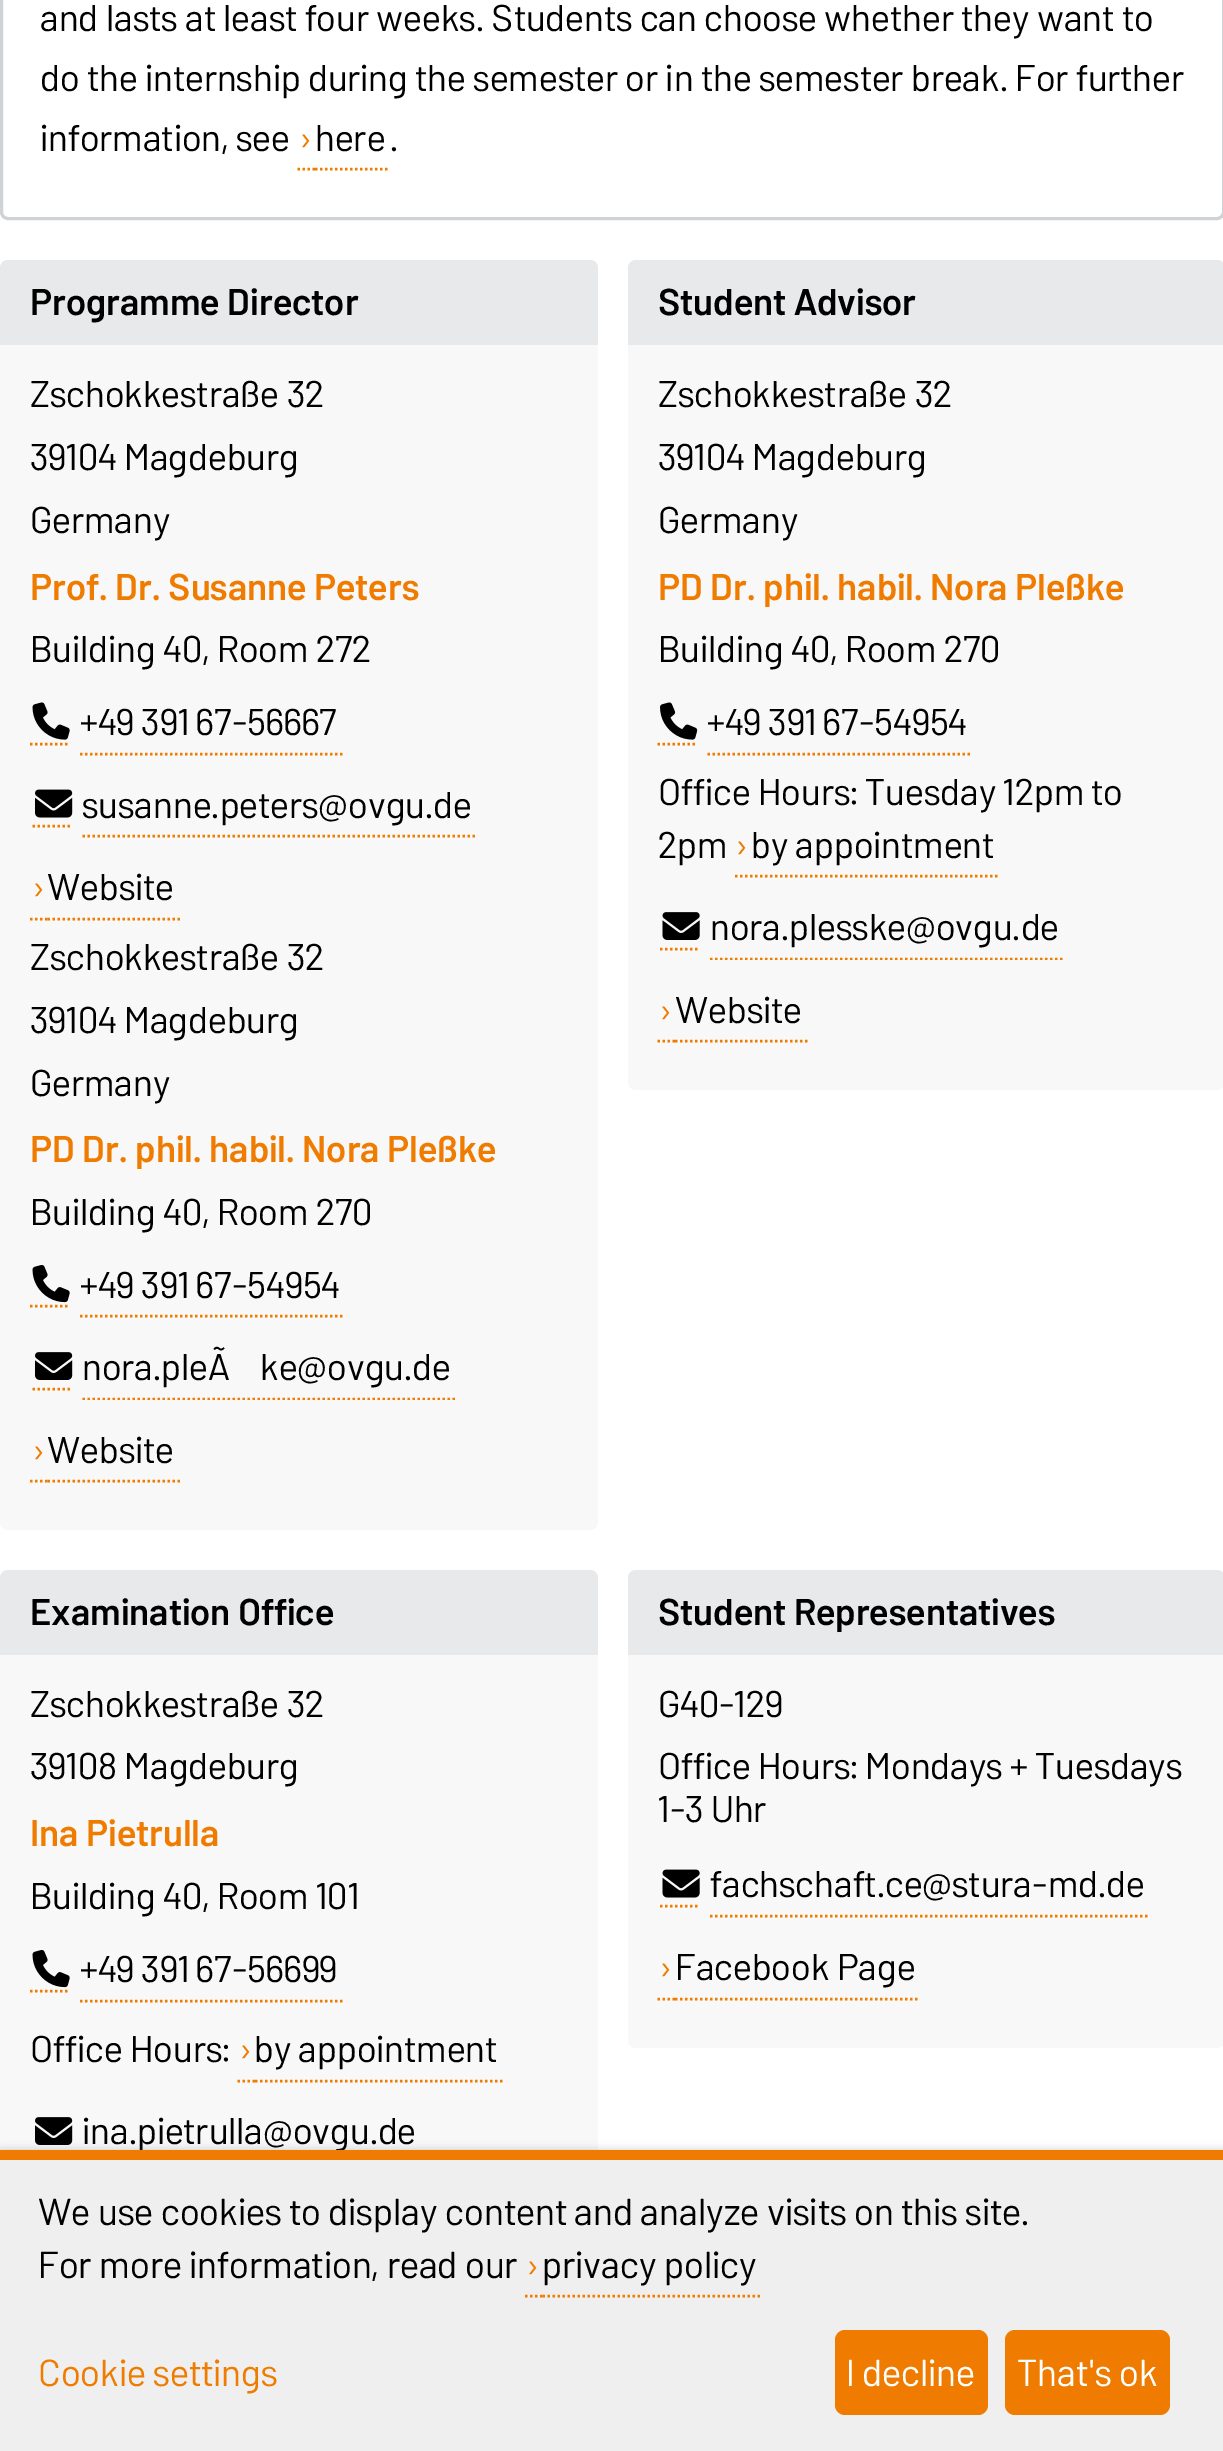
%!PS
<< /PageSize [1223 2451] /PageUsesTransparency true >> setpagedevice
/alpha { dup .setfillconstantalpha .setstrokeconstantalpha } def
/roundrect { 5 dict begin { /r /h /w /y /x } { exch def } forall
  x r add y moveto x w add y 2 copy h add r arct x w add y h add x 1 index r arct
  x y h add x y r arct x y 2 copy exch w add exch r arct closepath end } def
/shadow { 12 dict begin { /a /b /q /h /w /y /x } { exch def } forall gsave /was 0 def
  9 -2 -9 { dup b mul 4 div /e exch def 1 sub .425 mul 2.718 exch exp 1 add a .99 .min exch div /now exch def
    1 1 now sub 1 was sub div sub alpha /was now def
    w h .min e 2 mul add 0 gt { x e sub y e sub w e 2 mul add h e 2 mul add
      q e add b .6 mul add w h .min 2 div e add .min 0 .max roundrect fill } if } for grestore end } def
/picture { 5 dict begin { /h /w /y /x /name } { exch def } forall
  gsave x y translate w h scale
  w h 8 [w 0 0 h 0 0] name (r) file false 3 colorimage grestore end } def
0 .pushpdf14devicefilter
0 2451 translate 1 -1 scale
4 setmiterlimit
1 setgray
0 0 1223 2451 rectfill
0.812 0.827 0.839 setrgbcolor
3 setlinewidth
1.5 -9.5 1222 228 6.5 roundrect stroke
/Barlow-Regular [37.2 0 0 -37.2 0 0] selectfont
0 setgray
40 31 moveto (and lasts at least four weeks. Students can choose whether they want to) show
40 91 moveto (do the internship during the semester or in the semester break. For further) show
40 151 moveto (information, see) show
/Barlow-Regular [36 0 0 -36 0 0] selectfont
0.937 0.486 0 setrgbcolor
300 151 moveto (›) show
2.5 setlinewidth
newpath 297.5 169 moveto 300 169 lineto 302.5 169 moveto 305 169 lineto 307.5 169 moveto 310 169 lineto 312.5 169 moveto 315 169 lineto stroke
[2.5 2.5] 0 setdash
newpath 315 169 moveto 390 169 lineto stroke
/Barlow-Regular [37.2 0 0 -37.2 0 0] selectfont
0 setgray
315 151 moveto (here) show
390 151 moveto (.) show
0.906 0.914 0.918 setrgbcolor
newpath 8 260 moveto 590 260 lineto 594.5 260 598 263.5 598 268 curveto 598 345 lineto 0 345 lineto 0 268 lineto 0 263.5 3.5 260 8 260 curveto closepath fill
/Barlow-SemiBold [37.2 0 0 -37.2 0 0] selectfont
0 setgray
30 315 moveto (Programme Director) show
0.973 setgray
newpath 0 345 moveto 598 345 lineto 598 1522 lineto 598 1526.5 594.5 1530 590 1530 curveto 8 1530 lineto 3.5 1530 0 1526.5 0 1522 curveto closepath fill
/Barlow-Regular [37.2 0 0 -37.2 0 0] selectfont
0 setgray
30 407 moveto (Zschokkestraße 32) show
30 470 moveto (39104 Magdeburg) show
30 533 moveto (Germany) show
/Barlow-SemiBold [37.2 0 0 -37.2 0 0] selectfont
0.937 0.486 0 setrgbcolor
30 600 moveto (Prof. Dr. Susanne Peters) show
/Barlow-Regular [37.2 0 0 -37.2 0 0] selectfont
0 setgray
30 662 moveto (Building 40, Room 272) show
0.937 0.486 0 setrgbcolor
newpath 30 744 moveto 70 744 lineto stroke
newpath 80 754 moveto 342.5 754 lineto stroke
(img1.rgb) 32 702 38 38 picture
0 setgray
80 735 moveto (+49 391 67-56667) show
0.937 0.486 0 setrgbcolor
newpath 32.5 826 moveto 72.5 826 lineto stroke
newpath 82.5 836 moveto 477.5 836 lineto stroke
(img2.rgb) 35 789 38 29 picture
0 setgray
82 818 moveto (susanne.peters@ovgu.de) show
/Barlow-Regular [36 0 0 -36 0 0] selectfont
0.937 0.486 0 setrgbcolor
33 900 moveto (›) show
[] 0 setdash
newpath 30 919 moveto 32.5 919 lineto 35 919 moveto 37.5 919 lineto 40 919 moveto 42.5 919 lineto 45 919 moveto 47.5 919 lineto stroke
[2.5 2.5] 0 setdash
newpath 47.5 919 moveto 180 919 lineto stroke
/Barlow-Regular [37.2 0 0 -37.2 0 0] selectfont
0 setgray
47 900 moveto (Website) show
30 970 moveto (Zschokkestraße 32) show
30 1033 moveto (39104 Magdeburg) show
30 1096 moveto (Germany) show
/Barlow-SemiBold [37.2 0 0 -37.2 0 0] selectfont
0.937 0.486 0 setrgbcolor
30 1162 moveto (PD Dr. phil. habil. Nora Pleßke) show
/Barlow-Regular [37.2 0 0 -37.2 0 0] selectfont
0 setgray
30 1225 moveto (Building 40, Room 270) show
0.937 0.486 0 setrgbcolor
newpath 30 1306 moveto 70 1306 lineto stroke
newpath 80 1316 moveto 345 1316 lineto stroke
(img3.rgb) 32 1265 38 38 picture
0 setgray
80 1298 moveto (+49 391 67-54954) show
0.937 0.486 0 setrgbcolor
newpath 32.5 1389 moveto 72.5 1389 lineto stroke
gsave
30 1335 538 65 rectclip
newpath 82.5 1399 moveto 455 1399 lineto stroke
grestore
(img4.rgb) 35 1352 38 28 picture
0 setgray
82 1380 moveto (nora.pleÃ) show
260 1380 moveto (ke@ovgu.de) show
/Barlow-Regular [36 0 0 -36 0 0] selectfont
0.937 0.486 0 setrgbcolor
33 1463 moveto (›) show
[] 0 setdash
newpath 30 1481 moveto 32.5 1481 lineto 35 1481 moveto 37.5 1481 lineto 40 1481 moveto 42.5 1481 lineto 45 1481 moveto 47.5 1481 lineto stroke
[2.5 2.5] 0 setdash
newpath 47.5 1481 moveto 180 1481 lineto stroke
/Barlow-Regular [37.2 0 0 -37.2 0 0] selectfont
0 setgray
47 1463 moveto (Website) show
0.906 0.914 0.918 setrgbcolor
newpath 636 260 moveto 1217 260 lineto 1221.5 260 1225 263.5 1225 268 curveto 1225 345 lineto 628 345 lineto 628 268 lineto 628 263.5 631.5 260 636 260 curveto closepath fill
/Barlow-SemiBold [37.2 0 0 -37.2 0 0] selectfont
0 setgray
658 315 moveto (Student Advisor) show
0.973 setgray
newpath 628 345 moveto 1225 345 lineto 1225 1082 lineto 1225 1086.5 1221.5 1090 1217 1090 curveto 636 1090 lineto 631.5 1090 628 1086.5 628 1082 curveto closepath fill
/Barlow-Regular [37.2 0 0 -37.2 0 0] selectfont
0 setgray
658 407 moveto (Zschokkestraße 32) show
658 470 moveto (39104 Magdeburg) show
658 533 moveto (Germany) show
/Barlow-SemiBold [37.2 0 0 -37.2 0 0] selectfont
0.937 0.486 0 setrgbcolor
658 600 moveto (PD Dr. phil. habil. Nora Pleßke) show
/Barlow-Regular [37.2 0 0 -37.2 0 0] selectfont
0 setgray
658 662 moveto (Building 40, Room 270) show
0.937 0.486 0 setrgbcolor
newpath 657.5 744 moveto 697.5 744 lineto stroke
newpath 707.5 754 moveto 972.5 754 lineto stroke
(img5.rgb) 660 702 38 38 picture
0 setgray
707 735 moveto (+49 391 67-54954) show
658 805 moveto (Office Hours: Tuesday 12pm to) show
658 858 moveto (2pm) show
/Barlow-Regular [36 0 0 -36 0 0] selectfont
0.937 0.486 0 setrgbcolor
736 858 moveto (›) show
[] 0 setdash
newpath 735 876 moveto 737.5 876 lineto 740 876 moveto 742.5 876 lineto 745 876 moveto 747.5 876 lineto stroke
/Barlow-Regular [37.2 0 0 -37.2 0 0] selectfont
0 setgray
751 858 moveto (by appointment) show
0.937 0.486 0 setrgbcolor
[2.5 2.5] 0 setdash
newpath 750 876 moveto 1000 876 lineto stroke
newpath 660 949 moveto 700 949 lineto stroke
gsave
658 895 537 65 rectclip
newpath 710 959 moveto 1065 959 lineto stroke
grestore
(img6.rgb) 662 912 38 28 picture
0 setgray
710 940 moveto (nora.plesske@ovgu.de) show
/Barlow-Regular [36 0 0 -36 0 0] selectfont
0.937 0.486 0 setrgbcolor
660 1023 moveto (›) show
[] 0 setdash
newpath 657.5 1041 moveto 660 1041 lineto 662.5 1041 moveto 665 1041 lineto 667.5 1041 moveto 670 1041 lineto 672.5 1041 moveto 675 1041 lineto stroke
[2.5 2.5] 0 setdash
newpath 675 1041 moveto 807.5 1041 lineto stroke
/Barlow-Regular [37.2 0 0 -37.2 0 0] selectfont
0 setgray
675 1023 moveto (Website) show
0.906 0.914 0.918 setrgbcolor
newpath 8 1570 moveto 590 1570 lineto 594.5 1570 598 1573.5 598 1578 curveto 598 1655 lineto 0 1655 lineto 0 1578 lineto 0 1573.5 3.5 1570 8 1570 curveto closepath fill
/Barlow-SemiBold [37.2 0 0 -37.2 0 0] selectfont
0 setgray
30 1625 moveto (Examination Office) show
0.973 setgray
0 1655 598 495 rectfill
/Barlow-Regular [37.2 0 0 -37.2 0 0] selectfont
0 setgray
30 1717 moveto (Zschokkestraße 32) show
30 1779 moveto (39108 Magdeburg) show
/Barlow-SemiBold [37.2 0 0 -37.2 0 0] selectfont
0.937 0.486 0 setrgbcolor
30 1846 moveto (Ina Pietrulla) show
/Barlow-Regular [37.2 0 0 -37.2 0 0] selectfont
0 setgray
30 1909 moveto (Building 40, Room 101) show
0.937 0.486 0 setrgbcolor
newpath 30 1991 moveto 70 1991 lineto stroke
newpath 80 2001 moveto 342.5 2001 lineto stroke
(img3.rgb) 32 1950 38 38 picture
0 setgray
80 1982 moveto (+49 391 67-56699) show
30 2062 moveto (Office Hours:) show
/Barlow-Regular [36 0 0 -36 0 0] selectfont
0.937 0.486 0 setrgbcolor
240 2062 moveto (›) show
[] 0 setdash
newpath 237.5 2081 moveto 240 2081 lineto 242.5 2081 moveto 245 2081 lineto 247.5 2081 moveto 250 2081 lineto 252.5 2081 moveto 255 2081 lineto stroke
/Barlow-Regular [37.2 0 0 -37.2 0 0] selectfont
0 setgray
254 2062 moveto (by appointment) show
0.937 0.486 0 setrgbcolor
[2.5 2.5] 0 setdash
newpath 255 2081 moveto 502.5 2081 lineto stroke
(img4.rgb) 35 2117 38 28 picture
0 setgray
82 2144 moveto (ina.pietrulla@ovgu.de) show
0.906 0.914 0.918 setrgbcolor
newpath 636 1570 moveto 1217 1570 lineto 1221.5 1570 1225 1573.5 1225 1578 curveto 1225 1655 lineto 628 1655 lineto 628 1578 lineto 628 1573.5 631.5 1570 636 1570 curveto closepath fill
/Barlow-SemiBold [37.2 0 0 -37.2 0 0] selectfont
0 setgray
658 1625 moveto (Student Representatives) show
0.973 setgray
newpath 628 1655 moveto 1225 1655 lineto 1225 2040 lineto 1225 2044.5 1221.5 2048 1217 2048 curveto 636 2048 lineto 631.5 2048 628 2044.5 628 2040 curveto closepath fill
/Barlow-Regular [37.2 0 0 -37.2 0 0] selectfont
0 setgray
658 1717 moveto (G40-129) show
658 1779 moveto (Office Hours: Mondays + Tuesdays) show
658 1822 moveto (1-3 Uhr) show
0.937 0.486 0 setrgbcolor
newpath 660 1906 moveto 700 1906 lineto stroke
newpath 710 1916 moveto 1150 1916 lineto stroke
(img7.rgb) 662 1869 38 29 picture
0 setgray
710 1897 moveto (fachschaft.ce@stura-md.de) show
/Barlow-Regular [36 0 0 -36 0 0] selectfont
0.937 0.486 0 setrgbcolor
660 1980 moveto (›) show
[] 0 setdash
newpath 657.5 1999 moveto 660 1999 lineto 662.5 1999 moveto 665 1999 lineto 667.5 1999 moveto 670 1999 lineto 672.5 1999 moveto 675 1999 lineto stroke
/Barlow-Regular [37.2 0 0 -37.2 0 0] selectfont
0 setgray
675 1980 moveto (Facebook Page) show
0.937 0.486 0 setrgbcolor
[2.5 2.5] 0 setdash
newpath 675 1999 moveto 920 1999 lineto stroke
0.263 0.278 0.333 setrgbcolor
0 2150 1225 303 0 4.5 0.27 shadow
0.937 setgray
0 2160 1223 291 rectfill
0.937 0.486 0 setrgbcolor
0 2150 1223 10 rectfill
/Barlow-Regular [37.5 0 0 -37.5 0 0] selectfont
0 setgray
38 2225 moveto (We use cookies to display content and analyze visits on this site.) show
38 2278 moveto (For more information, read our) show
/Barlow-Regular [36 0 0 -36 0 0] selectfont
0.937 0.486 0 setrgbcolor
527 2278 moveto (›) show
[] 0 setdash
newpath 525 2296 moveto 527.5 2296 lineto 530 2296 moveto 532.5 2296 lineto 535 2296 moveto 537.5 2296 lineto 540 2296 moveto 542.5 2296 lineto stroke
/Barlow-Regular [37.5 0 0 -37.5 0 0] selectfont
0 setgray
542 2278 moveto (privacy policy) show
0.937 0.486 0 setrgbcolor
[2.5 2.5] 0 setdash
newpath 542.5 2296 moveto 762.5 2296 lineto stroke
38 2386 moveto (Cookie settings) show
835 2330 153 85 10 roundrect fill
1 setgray
846 2386 moveto (I decline) show
0.937 0.486 0 setrgbcolor
1005 2330 165 85 10 roundrect fill
1 setgray
1017 2386 moveto (That's ok) show
.poppdf14devicefilter showpage
